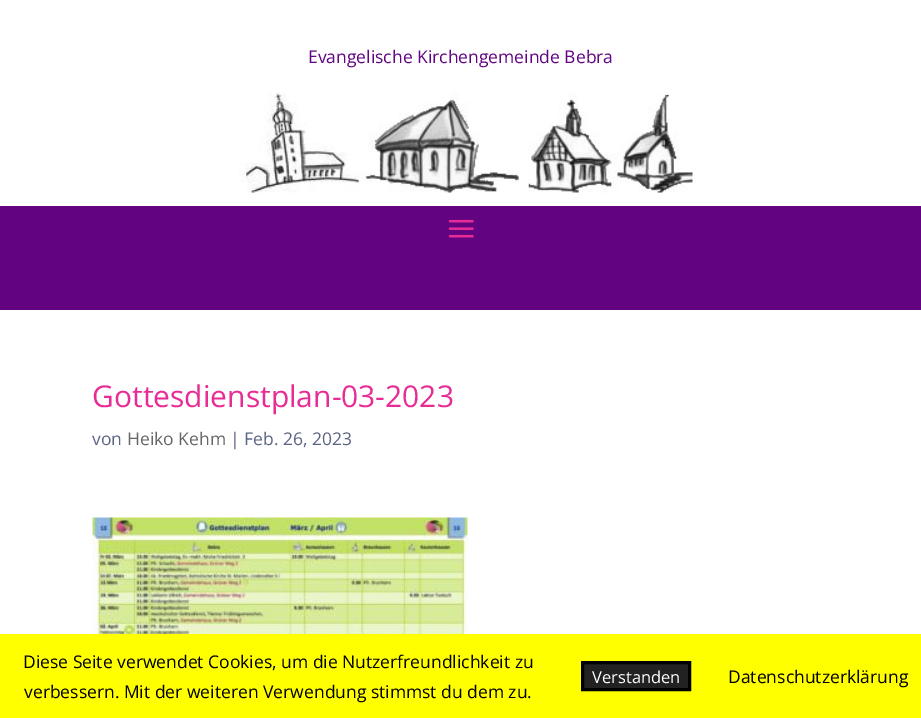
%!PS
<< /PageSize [921 718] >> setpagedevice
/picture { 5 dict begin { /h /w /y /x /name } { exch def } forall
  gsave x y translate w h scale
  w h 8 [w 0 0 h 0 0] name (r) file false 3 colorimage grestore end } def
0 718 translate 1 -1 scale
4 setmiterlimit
1 setgray
0 0 921 718 rectfill
/OpenSans-Regular [17.5 0 0 -17.5 0 0] selectfont
0.384 0.012 0.51 setrgbcolor
308 63 moveto (Evangelische Kirchengemeinde Bebra) show
(img1.rgb) 239 92 454 101 picture
0 206 921 104 rectfill
(img2.rgb) 448 219 26 19 picture
/OpenSans-Regular [30 0 0 -30 0 0] selectfont
0.91 0.173 0.584 setrgbcolor
92 407 moveto (Gottesdienstplan-03-2023) show
/OpenSans-Regular [17.5 0 0 -17.5 0 0] selectfont
0.357 0.392 0.518 setrgbcolor
92 445 moveto (von) show
0.4 setgray
127 445 moveto (Heiko Kehm) show
0.357 0.392 0.518 setrgbcolor
230 445 moveto (| Feb. 26, 2023) show
(img3.rgb) 92 517 376 117 picture
1 1 0 setrgbcolor
0 634 921 84 rectfill
0 setgray
23 668 moveto (Diese Seite verwendet Cookies, um die Nutzerfreundlichkeit zu) show
24 698 moveto (verbessern. Mit der weiteren Verwendung stimmst du dem zu.) show
0.133 setgray
newpath 582.5 662.5 moveto 689.5 662.5 lineto 689.5 689.5 lineto 582.5 689.5 lineto closepath gsave fill grestore
0 setgray
3 setlinewidth
stroke
/OpenSans-Regular [16.5 0 0 -16.5 0 0] selectfont
1 setgray
592 683 moveto (Verstanden) show
/OpenSans-Regular [17.5 0 0 -17.5 0 0] selectfont
0 setgray
728 683 moveto (Datenschutzerklärung) show
showpage
